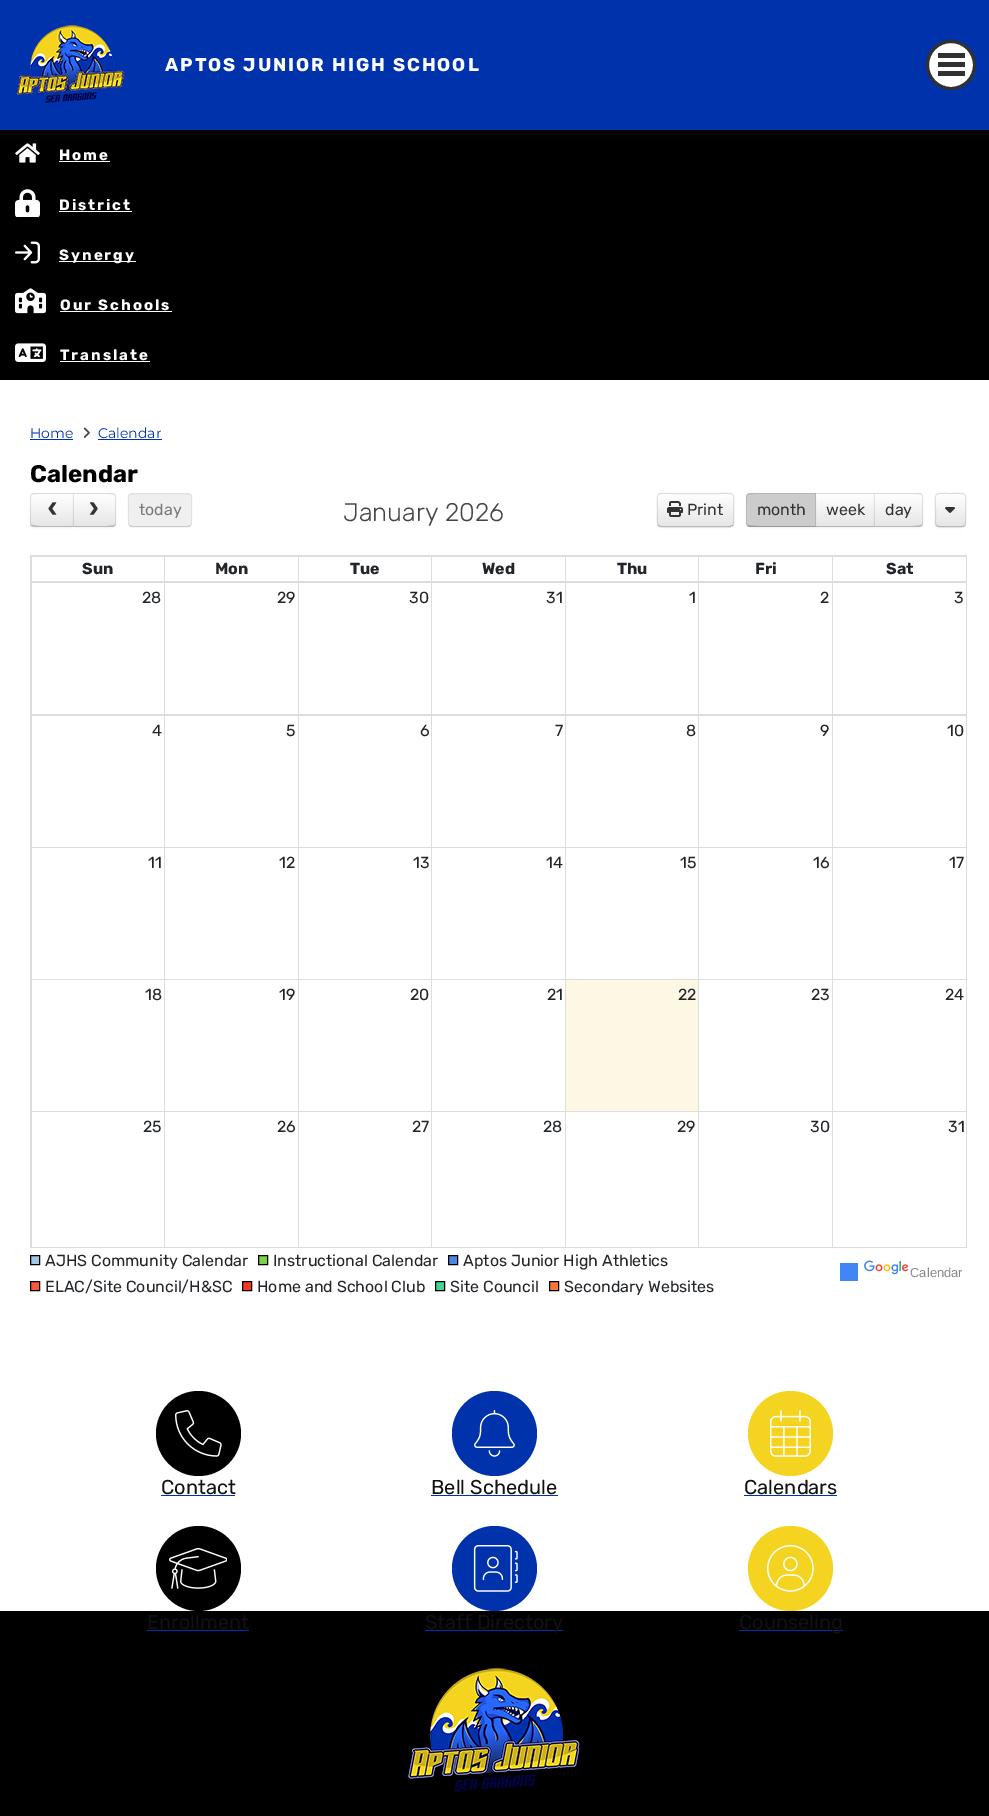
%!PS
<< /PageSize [989 1816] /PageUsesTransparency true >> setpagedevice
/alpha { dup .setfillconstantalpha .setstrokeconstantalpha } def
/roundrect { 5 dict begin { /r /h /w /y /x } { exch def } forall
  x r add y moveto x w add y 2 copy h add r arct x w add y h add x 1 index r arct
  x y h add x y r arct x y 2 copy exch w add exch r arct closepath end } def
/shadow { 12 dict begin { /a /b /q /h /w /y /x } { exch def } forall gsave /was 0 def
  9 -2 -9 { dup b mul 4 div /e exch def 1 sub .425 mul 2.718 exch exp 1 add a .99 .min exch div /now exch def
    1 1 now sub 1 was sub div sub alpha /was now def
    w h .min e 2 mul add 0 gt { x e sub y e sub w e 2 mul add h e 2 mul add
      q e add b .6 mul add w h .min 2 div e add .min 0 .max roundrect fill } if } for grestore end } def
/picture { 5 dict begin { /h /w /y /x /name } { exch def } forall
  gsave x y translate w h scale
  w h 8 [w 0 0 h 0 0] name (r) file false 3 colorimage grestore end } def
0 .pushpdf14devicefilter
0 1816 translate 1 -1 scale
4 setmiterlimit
1 setgray
0 0 989 1816 rectfill
0 setgray
0 130 989 250 rectfill
(img2.rgb) 15 143 25 20 picture
1 setgray
59 161 51 1 rectfill
(img3.rgb) 15 189 25 28 picture
0 setgray
0 0 989 130 0 20 0.1 shadow
0 0.196 0.675 setrgbcolor
0 0 989 130 rectfill
(img1.rgb) 16 25 109 78 picture
/Rubik-Bold [18.4 0 0 -18.4 0 0] selectfont
1 setgray
165 71 moveto 2 0 (APTOS JUNIOR HIGH SCHOOL) ashow
newpath 951 65 23.5 0 360 arc closepath gsave fill grestore
0.192 setgray
3 setlinewidth
stroke
938 53 27 5 rectfill
938 62 27 5 rectfill
938 71 27 5 rectfill
/Rubik-Bold [15 0 0 -15 0 0] selectfont
1 setgray
59 160 moveto 2 0 (Home) ashow
59 210 moveto 2 0 (District) ashow
59 211 73 1 rectfill
(img4.rgb) 15 241 25 23 picture
59 261 77 1 rectfill
59 260 moveto 2 0 (Synergy) ashow
(img5.rgb) 15 288 31 26 picture
60 310 moveto 2 0 (Our Schools) ashow
60 311 112 1 rectfill
(img6.rgb) 15 343 31 19 picture
60 360 moveto 2 0 (Translate) ashow
60 361 90 1 rectfill
/Montserrat-Regular [14 0 0 -14 0 0] selectfont
0 0.196 0.675 setrgbcolor
30 438 moveto (Home) show
30 439 43 1 rectfill
(img7.rgb) 83 427 7 11 picture
98 438 moveto (Calendar) show
98 439 64 1 rectfill
/Rubik-Bold [24 0 0 -24 0 0] selectfont
0 setgray
30 482 moveto (Calendar) show
30 494 44 34 4 1 0.05 shadow
0.961 setgray
newpath 34 493 moveto 74 493 lineto 74 527 lineto 34 527 lineto 32 527 30 525 30 523 curveto 30 497 lineto 30 495 32 493 34 493 curveto closepath fill
gsave
newpath 34 493 moveto 74 493 lineto 74 527 lineto 34 527 lineto 32 527 30 525 30 523 curveto 30 497 lineto 30 495 32 493 34 493 curveto closepath clip newpath
gsave newpath 30 494 moveto 73 494 lineto 73 526 lineto 30 526 lineto closepath clip newpath
<< /ShadingType 2 /ColorSpace /DeviceRGB /Coords [52 494 52 526] /Extend [true true] /Function << /FunctionType 2 /Domain [0 1] /C0 [1 1 1] /C1 [0.902 0.902 0.902] /N 1 >> >> shfill grestore
grestore
0.1 alpha
0 setgray
newpath 34 493 moveto 31 494 lineto 32 495 lineto 34 493 68 494 73 494 curveto 74 493 lineto closepath fill
0.25 alpha
newpath 74 527 moveto 73 526 lineto 68 526 34 527 32 525 curveto 31 526 lineto 34 527 lineto closepath fill
0.1 alpha
newpath 30 497 moveto 30 523 lineto 30 524 30.5 525 31 526 curveto 32 525 lineto 31 525 31 524 31 523 curveto 31 497 lineto 31 496 31 495 32 495 curveto 31 494 lineto 30.5 495 30 496 30 497 curveto closepath fill
/LiberationMono-Bold [32 0 0 -32 0 0] selectfont
1 alpha
0.2 setgray
43 517 moveto (‹) show
0 setgray
73 494 43 34 4 1 0.05 shadow
0.961 setgray
newpath 73 493 moveto 112 493 lineto 114 493 116 495 116 497 curveto 116 523 lineto 116 525 114 527 112 527 curveto 73 527 lineto closepath fill
gsave
newpath 73 493 moveto 112 493 lineto 114 493 116 495 116 497 curveto 116 523 lineto 116 525 114 527 112 527 curveto 73 527 lineto closepath clip newpath
gsave newpath 73 494 moveto 116 494 lineto 116 526 lineto 73 526 lineto closepath clip newpath
<< /ShadingType 2 /ColorSpace /DeviceRGB /Coords [95 494 95 526] /Extend [true true] /Function << /FunctionType 2 /Domain [0 1] /C0 [1 1 1] /C1 [0.902 0.902 0.902] /N 1 >> >> shfill grestore
grestore
0.1 alpha
0 setgray
newpath 73 493 moveto 74 494 lineto 79 494 112 493 114 495 curveto 115 494 lineto 112 493 lineto closepath fill
newpath 116 523 moveto 116 497 lineto 116 496 115.5 495 115 494 curveto 114 495 lineto 115 495 115 496 115 497 curveto 115 523 lineto 115 524 115 525 114 525 curveto 115 526 lineto 115.5 525 116 524 116 523 curveto closepath fill
0.25 alpha
newpath 112 527 moveto 115 526 lineto 114 525 lineto 112 527 79 526 74 526 curveto 73 527 lineto closepath fill
0.1 alpha
newpath 73 493 moveto 73 527 lineto 74 526 lineto 74 494 lineto closepath fill
1 alpha
0.2 setgray
84 517 moveto (›) show
0.937 setgray
128 493 64 34 4 roundrect fill
0.25 alpha
0.349 setgray
1 setlinewidth
newpath 190.5 525.5 moveto 188.5 526.5 lineto 131.5 526.5 lineto 129.5 525.5 lineto stroke
0.1 alpha
newpath 129.5 525.5 moveto 127.5 523 128.5 513 128.5 510 curveto 128.5 493 125 493.5 141.5 493.5 curveto 178.5 493.5 lineto 195 493.5 191.5 493 191.5 510 curveto 191.5 513 192.5 523 190.5 525.5 curveto stroke
/Rubik-Regular [16 0 0 -16 0 0] selectfont
1 alpha
0.478 setgray
139 515 moveto (today) show
/Rubik-Light [25.5 0 0 -25.5 0 0] selectfont
0.271 setgray
343 521 moveto (January 2026) show
0 setgray
657 494 77 34 4 1 0.05 shadow
0.961 setgray
657 493 77 34 4 roundrect fill
gsave
657 493 77 34 4 roundrect clip newpath
gsave newpath 657 494 moveto 734 494 lineto 734 526 lineto 657 526 lineto closepath clip newpath
<< /ShadingType 2 /ColorSpace /DeviceRGB /Coords [696 494 696 526] /Extend [true true] /Function << /FunctionType 2 /Domain [0 1] /C0 [1 1 1] /C1 [0.902 0.902 0.902] /N 1 >> >> shfill grestore
grestore
0.25 alpha
0 setgray
newpath 732.5 525.5 moveto 730.5 526.5 lineto 660.5 526.5 lineto 658.5 525.5 lineto stroke
0.1 alpha
newpath 658.5 525.5 moveto 656.5 523 657.5 513 657.5 510 curveto 657.5 491.5 654.5 493.5 672.5 493.5 curveto 718.5 493.5 lineto 736.5 493.5 733.5 491.5 733.5 510 curveto 733.5 513 734.5 523 732.5 525.5 curveto stroke
1 alpha
(img8.rgb) 667 501 16 16 picture
/Rubik-Regular [16 0 0 -16 0 0] selectfont
0.2 setgray
687 515 moveto (Print) show
0 setgray
815 494 60 34 0 1 0.05 shadow
gsave newpath 816 494 moveto 874 494 lineto 874 526 lineto 816 526 lineto closepath clip newpath
<< /ShadingType 2 /ColorSpace /DeviceRGB /Coords [845 494 845 526] /Extend [true true] /Function << /FunctionType 2 /Domain [0 1] /C0 [1 1 1] /C1 [0.902 0.902 0.902] /N 1 >> >> shfill grestore
0.867 setgray
newpath 815 493 moveto 875 493 lineto 874 494 lineto 816 494 lineto closepath fill
0.25 alpha
0 setgray
newpath 875 527 moveto 815 527 lineto 816 526 lineto 874 526 lineto closepath fill
1 alpha
746 494 70 34 4 1 0.05 shadow
0.8 setgray
newpath 750 493 moveto 816 493 lineto 816 527 lineto 750 527 lineto 748 527 746 525 746 523 curveto 746 497 lineto 746 495 748 493 750 493 curveto closepath fill
0.1 alpha
0 setgray
newpath 750 493 moveto 747 494 lineto 748 495 lineto 749 493 808 494 815 494 curveto 816 493 lineto closepath fill
newpath 816 493 moveto 815 494 lineto 815 526 lineto 816 527 lineto closepath fill
0.25 alpha
newpath 816 527 moveto 815 526 lineto 808 526 749 527 748 525 curveto 747 526 lineto 750 527 lineto closepath fill
0.1 alpha
newpath 746 497 moveto 746 523 lineto 746 524 746.5 525 747 526 curveto 748 525 lineto 747 525 747 524 747 523 curveto 747 497 lineto 747 496 747 495 748 495 curveto 747 494 lineto 746.5 495 746 496 746 497 curveto closepath fill
1 alpha
0.2 setgray
757 515 moveto (month) show
826 515 moveto (week) show
0 setgray
874 494 49 34 4 1 0.05 shadow
0.961 setgray
newpath 874 493 moveto 919 493 lineto 921 493 923 495 923 497 curveto 923 523 lineto 923 525 921 527 919 527 curveto 874 527 lineto closepath fill
gsave
newpath 874 493 moveto 919 493 lineto 921 493 923 495 923 497 curveto 923 523 lineto 923 525 921 527 919 527 curveto 874 527 lineto closepath clip newpath
gsave newpath 874 494 moveto 923 494 lineto 923 526 lineto 874 526 lineto closepath clip newpath
<< /ShadingType 2 /ColorSpace /DeviceRGB /Coords [899 494 899 526] /Extend [true true] /Function << /FunctionType 2 /Domain [0 1] /C0 [1 1 1] /C1 [0.902 0.902 0.902] /N 1 >> >> shfill grestore
grestore
0.1 alpha
0 setgray
newpath 874 493 moveto 875 494 lineto 880 494 919 493 921 495 curveto 922 494 lineto 919 493 lineto closepath fill
newpath 923 523 moveto 923 497 lineto 923 496 922.5 495 922 494 curveto 921 495 lineto 922 495 922 496 922 497 curveto 922 523 lineto 922 524 922 525 921 525 curveto 922 526 lineto 922.5 525 923 524 923 523 curveto closepath fill
0.25 alpha
newpath 919 527 moveto 922 526 lineto 921 525 lineto 919 527 880 526 875 526 curveto 874 527 lineto closepath fill
0.1 alpha
newpath 874 493 moveto 874 527 lineto 875 526 lineto 875 494 lineto closepath fill
1 alpha
0.2 setgray
885 515 moveto (day) show
0 setgray
935 494 31 34 4 1 0.05 shadow
0.961 setgray
935 493 31 34 4 roundrect fill
gsave
935 493 31 34 4 roundrect clip newpath
gsave newpath 935 494 moveto 966 494 lineto 966 526 lineto 935 526 lineto closepath clip newpath
<< /ShadingType 2 /ColorSpace /DeviceRGB /Coords [951 494 951 526] /Extend [true true] /Function << /FunctionType 2 /Domain [0 1] /C0 [1 1 1] /C1 [0.902 0.902 0.902] /N 1 >> >> shfill grestore
grestore
0.722 setgray
newpath 964.5 525.5 moveto 964 526 963 526.5 962 526.5 curveto 939 526.5 lineto 938 526.5 937 526 936.5 525.5 curveto stroke
0.1 alpha
0 setgray
newpath 936.5 525.5 moveto 935 524 935.5 520.5 935.5 518.5 curveto 935.5 510 lineto 935.5 491.5 932.5 493.5 950.5 493.5 curveto 968.5 493.5 965.5 491.5 965.5 510 curveto 965.5 518.5 lineto 965.5 520.5 966 524 964.5 525.5 curveto stroke
1 alpha
(img9.rgb) 945 507 10 6 picture
0.867 setgray
30 555 937 1 rectfill
30 582 937 1 rectfill
966 582 1 666 rectfill
966 555 1 28 rectfill
30 1247 937 1 rectfill
30 582 1 666 rectfill
30 555 1 28 rectfill
832 556 135 1 rectfill
832 581 135 1 rectfill
832 556 1 26 rectfill
698 556 135 1 rectfill
698 581 135 1 rectfill
698 556 1 26 rectfill
565 556 134 1 rectfill
565 581 134 1 rectfill
565 556 1 26 rectfill
431 556 135 1 rectfill
431 581 135 1 rectfill
431 556 1 26 rectfill
298 556 134 1 rectfill
298 581 134 1 rectfill
298 556 1 26 rectfill
164 556 135 1 rectfill
164 581 135 1 rectfill
164 556 1 26 rectfill
31 556 134 1 rectfill
31 581 134 1 rectfill
31 556 1 26 rectfill
/Rubik-Bold [16 0 0 -16 0 0] selectfont
0.129 0.145 0.161 setrgbcolor
82 574 moveto (Sun) show
215 574 moveto (Mon) show
350 574 moveto (Tue) show
482 574 moveto (Wed) show
617 574 moveto (Thu) show
755 574 moveto (Fri) show
886 574 moveto (Sat) show
0.867 setgray
832 714 135 2 rectfill
832 582 1 133 rectfill
698 714 135 1 rectfill
698 582 1 133 rectfill
565 714 134 1 rectfill
565 582 1 133 rectfill
431 714 135 1 rectfill
431 582 1 133 rectfill
298 714 134 1 rectfill
298 582 1 133 rectfill
164 714 135 1 rectfill
164 582 1 133 rectfill
31 714 134 1 rectfill
31 582 1 133 rectfill
/Rubik-Regular [16 0 0 -16 0 0] selectfont
0.129 0.145 0.161 setrgbcolor
142 603 moveto (28) show
277 603 moveto (29) show
409 603 moveto (30) show
546 603 moveto (31) show
689 603 moveto (1) show
820 603 moveto (2) show
954 603 moveto (3) show
0.867 setgray
832 847 135 1 rectfill
832 715 1 133 rectfill
698 715 135 1 rectfill
698 847 135 1 rectfill
698 715 1 133 rectfill
565 715 134 1 rectfill
565 847 134 1 rectfill
565 715 1 133 rectfill
431 715 135 1 rectfill
431 847 135 1 rectfill
431 715 1 133 rectfill
298 715 134 1 rectfill
298 847 134 1 rectfill
298 715 1 133 rectfill
164 715 135 1 rectfill
164 847 135 1 rectfill
164 715 1 133 rectfill
31 715 134 1 rectfill
31 847 134 1 rectfill
31 715 1 133 rectfill
0.129 0.145 0.161 setrgbcolor
152 736 moveto (4) show
286 736 moveto (5) show
420 736 moveto (6) show
555 736 moveto (7) show
686 736 moveto (8) show
820 736 moveto (9) show
947 736 moveto (10) show
0.867 setgray
565 847 1 133 rectfill
431 979 135 1 rectfill
431 847 1 133 rectfill
298 979 134 1 rectfill
298 847 1 133 rectfill
164 979 135 1 rectfill
164 847 1 133 rectfill
31 979 134 1 rectfill
31 847 1 133 rectfill
698 847 1 133 rectfill
832 979 135 1 rectfill
832 847 1 133 rectfill
0.129 0.145 0.161 setrgbcolor
148 868 moveto (11) show
279 868 moveto (12) show
413 868 moveto (13) show
546 868 moveto (14) show
680 868 moveto (15) show
813 868 moveto (16) show
949 868 moveto (17) show
0.867 setgray
832 1111 135 1 rectfill
832 979 1 133 rectfill
698 1111 135 1 rectfill
698 979 135 1 rectfill
698 979 1 133 rectfill
565 1111 134 1 rectfill
565 979 134 1 rectfill
565 979 1 133 rectfill
431 1111 135 1 rectfill
431 979 1 133 rectfill
298 1111 134 1 rectfill
298 979 1 133 rectfill
164 1111 135 1 rectfill
164 979 1 133 rectfill
31 1111 134 1 rectfill
31 979 1 269 rectfill
0.988 0.973 0.89 setrgbcolor
566 980 132 131 rectfill
0.129 0.145 0.161 setrgbcolor
145 1000 moveto (18) show
279 1000 moveto (19) show
410 1000 moveto (20) show
547 1000 moveto (21) show
678 1000 moveto (22) show
811 1000 moveto (23) show
945 1000 moveto (24) show
0.867 setgray
164 1111 1 137 rectfill
298 1111 1 137 rectfill
431 1111 1 137 rectfill
565 1111 1 137 rectfill
698 1111 1 137 rectfill
832 1111 1 137 rectfill
0.129 0.145 0.161 setrgbcolor
143 1132 moveto (25) show
277 1132 moveto (26) show
412 1132 moveto (27) show
543 1132 moveto (28) show
677 1132 moveto (29) show
810 1132 moveto (30) show
948 1132 moveto (31) show
0.624 0.776 0.906 setrgbcolor
newpath 30.5 1255.5 moveto 39.5 1255.5 lineto 39.5 1264.5 lineto 30.5 1264.5 lineto closepath gsave fill grestore
0 setgray
stroke
0.129 0.145 0.161 setrgbcolor
45 1266 moveto (AJHS Community Calendar) show
0.482 0.82 0.282 setrgbcolor
newpath 258.5 1255.5 moveto 267.5 1255.5 lineto 267.5 1264.5 lineto 258.5 1264.5 lineto closepath gsave fill grestore
0 setgray
stroke
0.129 0.145 0.161 setrgbcolor
273 1266 moveto (Instructional Calendar) show
0.286 0.525 0.906 setrgbcolor
newpath 448.5 1255.5 moveto 457.5 1255.5 lineto 457.5 1264.5 lineto 448.5 1264.5 lineto closepath gsave fill grestore
0 setgray
stroke
0.129 0.145 0.161 setrgbcolor
463 1266 moveto (Aptos Junior High Athletics) show
0.98 0.341 0.235 setrgbcolor
newpath 30.5 1281.5 moveto 39.5 1281.5 lineto 39.5 1290.5 lineto 30.5 1290.5 lineto closepath gsave fill grestore
0 setgray
stroke
0.129 0.145 0.161 setrgbcolor
45 1292 moveto (ELAC/Site Council/H&SC) show
0.973 0.227 0.133 setrgbcolor
newpath 242.5 1281.5 moveto 251.5 1281.5 lineto 251.5 1290.5 lineto 242.5 1290.5 lineto closepath gsave fill grestore
0 setgray
stroke
0.129 0.145 0.161 setrgbcolor
257 1292 moveto (Home and School Club) show
0.259 0.839 0.573 setrgbcolor
newpath 435.5 1281.5 moveto 444.5 1281.5 lineto 444.5 1290.5 lineto 435.5 1290.5 lineto closepath gsave fill grestore
0 setgray
stroke
0.129 0.145 0.161 setrgbcolor
450 1292 moveto (Site Council) show
1 0.459 0.216 setrgbcolor
newpath 549.5 1281.5 moveto 558.5 1281.5 lineto 558.5 1290.5 lineto 549.5 1290.5 lineto closepath gsave fill grestore
0 setgray
stroke
0.129 0.145 0.161 setrgbcolor
564 1292 moveto (Secondary Websites) show
0.259 0.522 0.957 setrgbcolor
840 1263 18 18 rectfill
(img10.rgb) 864 1260 45 15 picture
/LiberationSans-Regular [13 0 0 -13 0 0] selectfont
0.529 0.537 0.545 setrgbcolor
910 1277 moveto (Calendar) show
0 setgray
newpath 198.5 1433.5 42.5 0 360 arc closepath fill
(img11.rgb) 175 1410 47 47 picture
/Rubik-Regular [20 0 0 -20 0 0] selectfont
0.067 setgray
161 1494 moveto (Contact) show
0 0.196 0.675 setrgbcolor
161 1495 74 1 rectfill
newpath 494.5 1433.5 42.5 0 360 arc closepath fill
(img12.rgb) 474 1410 41 47 picture
0.067 setgray
431 1494 moveto (Bell Schedule) show
0 0.196 0.675 setrgbcolor
431 1495 127 1 rectfill
0.957 0.831 0.129 setrgbcolor
newpath 790.5 1433.5 42.5 0 360 arc closepath fill
(img13.rgb) 770 1410 41 47 picture
0.067 setgray
744 1494 moveto (Calendars) show
0 0.196 0.675 setrgbcolor
744 1495 93 1 rectfill
0 setgray
newpath 198.5 1568.5 42.5 0 360 arc closepath fill
(img14.rgb) 169 1547 58 42 picture
0 1611 989 205 rectfill
0.067 setgray
147 1629 moveto (Enrollment) show
0 0.196 0.675 setrgbcolor
147 1630 102 1 rectfill
newpath 494.5 1568.5 42.5 0 360 arc closepath fill
(img15.rgb) 473 1545 45 47 picture
425 1630 138 1 rectfill
0.067 setgray
425 1629 moveto (Staff Directory) show
0.957 0.831 0.129 setrgbcolor
newpath 790.5 1568.5 42.5 0 360 arc closepath fill
(img16.rgb) 767 1545 47 47 picture
0 0.196 0.675 setrgbcolor
739 1630 104 1 rectfill
0.067 setgray
739 1629 moveto (Counseling) show
(img17.rgb) 407 1668 173 124 picture
.poppdf14devicefilter showpage
